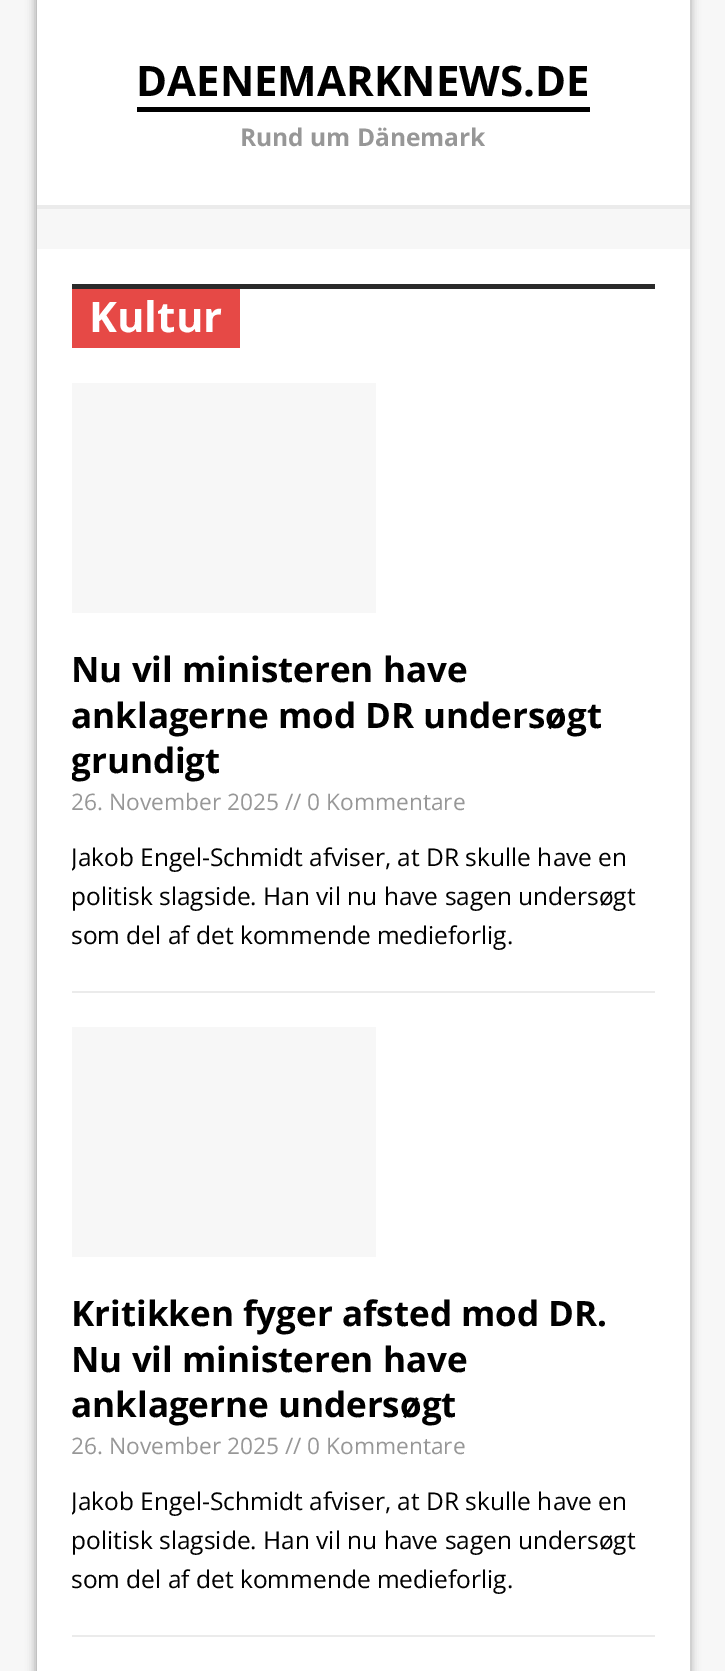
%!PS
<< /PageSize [725 1671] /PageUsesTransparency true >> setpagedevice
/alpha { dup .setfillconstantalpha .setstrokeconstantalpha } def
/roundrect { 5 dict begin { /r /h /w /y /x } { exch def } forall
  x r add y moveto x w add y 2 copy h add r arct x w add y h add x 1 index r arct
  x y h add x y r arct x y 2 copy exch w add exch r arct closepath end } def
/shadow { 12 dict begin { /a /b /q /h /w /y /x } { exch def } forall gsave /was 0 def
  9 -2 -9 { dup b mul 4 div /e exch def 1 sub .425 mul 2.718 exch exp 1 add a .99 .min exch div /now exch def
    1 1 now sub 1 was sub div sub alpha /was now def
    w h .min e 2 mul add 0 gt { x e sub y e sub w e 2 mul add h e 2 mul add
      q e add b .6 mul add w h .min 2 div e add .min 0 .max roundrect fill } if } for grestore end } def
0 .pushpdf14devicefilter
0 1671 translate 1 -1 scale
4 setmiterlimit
0.969 setgray
0 0 725 1671 rectfill
gsave
newpath 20 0 moveto 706 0 lineto 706 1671 lineto 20 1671 lineto closepath 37 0 moveto 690 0 lineto 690 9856 lineto 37 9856 lineto closepath eoclip newpath
0.659 setgray
35 -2 656 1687 0 4.5 1 shadow
grestore
1 setgray
37 0 653 205 rectfill
0.922 setgray
37 205 653 4 rectfill
0 setgray
137 107 453 5 rectfill
/OpenSans-Bold [42 0 0 -42 0 0] selectfont
136 96 moveto (DAENEMARKNEWS.DE) show
/OpenSans-Bold [24.5 0 0 -24.5 0 0] selectfont
0.592 setgray
240 146 moveto (Rund um Dänemark) show
1 setgray
37 249 653 1422 rectfill
0.165 setgray
72 284 583 5 rectfill
0.902 0.286 0.275 setrgbcolor
72 289 168 59 rectfill
/OpenSans-Bold [42 0 0 -42 0 0] selectfont
1 setgray
89 332 moveto (Kultur) show
0.922 setgray
72 991 583 2 rectfill
0.969 setgray
72 383 304 230 rectfill
/OpenSans-Bold [35 0 0 -35 0 0] selectfont
0 setgray
71 682 moveto (Nu vil ministeren have) show
71 728 moveto (anklagerne mod DR undersøgt) show
gsave
72 284 583 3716 rectclip
71 773 moveto (grundigt) show
grestore
/OpenSans-Regular [22.75 0 0 -22.75 0 0] selectfont
0.592 setgray
71 810 moveto (26. November 2025 // 0 Kommentare) show
gsave
72 284 583 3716 rectclip
/OpenSans-Regular [24.5 0 0 -24.5 0 0] selectfont
0 setgray
71 866 moveto (Jakob Engel-Schmidt afviser, at DR skulle have en) show
grestore
/OpenSans-Regular [24.5 0 0 -24.5 0 0] selectfont
0 setgray
71 905 moveto (politisk slagside. Han vil nu have sagen undersøgt) show
71 944 moveto (som del af det kommende medieforlig.) show
0.922 setgray
72 1635 583 2 rectfill
0.969 setgray
72 1027 304 230 rectfill
/OpenSans-Bold [35 0 0 -35 0 0] selectfont
0 setgray
71 1326 moveto (Kritikken fyger afsted mod DR.) show
71 1372 moveto (Nu vil ministeren have) show
71 1417 moveto (anklagerne undersøgt) show
/OpenSans-Regular [22.75 0 0 -22.75 0 0] selectfont
0.592 setgray
71 1454 moveto (26. November 2025 // 0 Kommentare) show
gsave
72 284 583 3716 rectclip
/OpenSans-Regular [24.5 0 0 -24.5 0 0] selectfont
0 setgray
71 1510 moveto (Jakob Engel-Schmidt afviser, at DR skulle have en) show
grestore
/OpenSans-Regular [24.5 0 0 -24.5 0 0] selectfont
0 setgray
71 1549 moveto (politisk slagside. Han vil nu have sagen undersøgt) show
71 1588 moveto (som del af det kommende medieforlig.) show
.poppdf14devicefilter showpage
